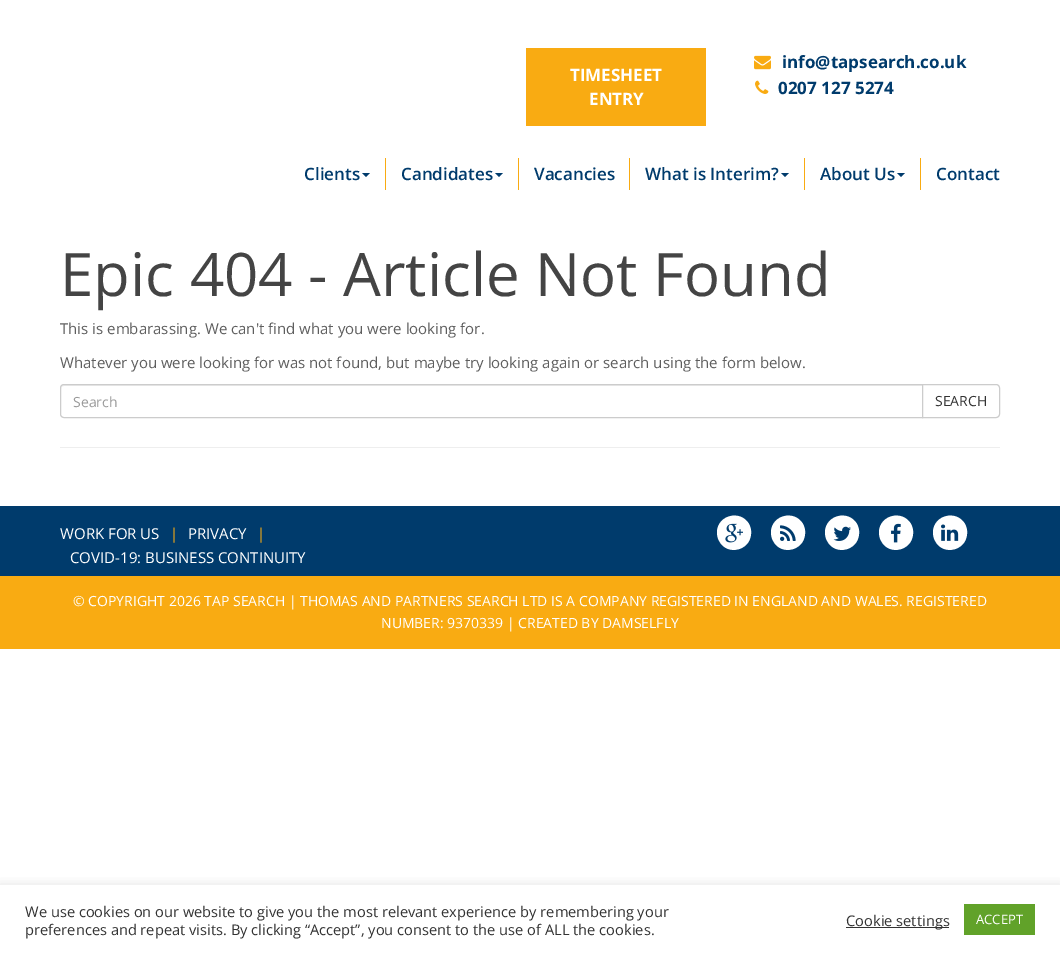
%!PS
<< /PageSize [1060 954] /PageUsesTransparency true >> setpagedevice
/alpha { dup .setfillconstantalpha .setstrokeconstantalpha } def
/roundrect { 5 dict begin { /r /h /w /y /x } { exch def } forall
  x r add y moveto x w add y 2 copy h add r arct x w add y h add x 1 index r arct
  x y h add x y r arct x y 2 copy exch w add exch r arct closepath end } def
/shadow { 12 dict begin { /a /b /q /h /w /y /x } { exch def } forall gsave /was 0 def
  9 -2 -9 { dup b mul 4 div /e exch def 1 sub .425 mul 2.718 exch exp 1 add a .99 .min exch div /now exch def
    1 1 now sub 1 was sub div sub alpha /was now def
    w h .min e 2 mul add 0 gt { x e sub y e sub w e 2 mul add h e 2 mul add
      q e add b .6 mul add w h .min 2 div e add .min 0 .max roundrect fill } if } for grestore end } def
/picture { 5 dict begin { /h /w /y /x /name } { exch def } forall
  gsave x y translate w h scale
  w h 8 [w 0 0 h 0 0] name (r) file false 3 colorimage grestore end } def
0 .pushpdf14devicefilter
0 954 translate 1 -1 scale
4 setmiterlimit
1 setgray
0 0 1060 954 rectfill
(img1.rgb) 754 55 17 15 picture
/OpenSans-Bold [17 0 0 -17 0 0] selectfont
0 0.231 0.424 setrgbcolor
782 68 moveto (info@tapsearch.co.uk) show
0.976 0.671 0.071 setrgbcolor
526 48 180 78 rectfill
1 setgray
570 81 moveto (TIMESHEET) show
589 105 moveto (ENTRY) show
(img2.rgb) 755 80 14 14 picture
0 0.231 0.424 setrgbcolor
778 94 moveto (0207 127 5274) show
0.976 0.671 0.071 setrgbcolor
385 158 1 32 rectfill
/OpenSans-SemiBold [17 0 0 -17 0 0] selectfont
0 0.231 0.424 setrgbcolor
304 180 moveto (Clients) show
newpath 362 173 moveto 370 173 lineto 366 177 lineto closepath fill
0.976 0.671 0.071 setrgbcolor
518 158 1 32 rectfill
0 0.231 0.424 setrgbcolor
401 180 moveto (Candidates) show
newpath 495 173 moveto 503 173 lineto 499 177 lineto closepath fill
0.976 0.671 0.071 setrgbcolor
629 158 1 32 rectfill
0 0.231 0.424 setrgbcolor
534 180 moveto (Vacancies) show
0.976 0.671 0.071 setrgbcolor
804 158 1 32 rectfill
0 0.231 0.424 setrgbcolor
645 180 moveto (What is Interim?) show
newpath 781 173 moveto 789 173 lineto 785 177 lineto closepath fill
0.976 0.671 0.071 setrgbcolor
920 158 1 32 rectfill
0 0.231 0.424 setrgbcolor
820 180 moveto (About Us) show
newpath 897 173 moveto 905 173 lineto 901 177 lineto closepath fill
936 180 moveto (Contact) show
0.933 setgray
60 447 940 1 rectfill
/OpenSans-Regular [60 0 0 -60 0 0] selectfont
0.267 setgray
60 296 moveto (Epic 404 - Article Not Found) show
/OpenSans-Regular [15 0 0 -15 0 0] selectfont
0.369 setgray
60 334 moveto (This is embarassing. We can't find what you were looking for.) show
60 368 moveto (Whatever you were looking for was not found, but maybe try looking again or search using the form below.) show
0.925 setgray
newpath 64 386 moveto 922 386 lineto 922 385 lineto 64 385 lineto 62 385 61 387 61 389 curveto 61 387 62 386 64 386 curveto closepath fill
0.8 setgray
newpath 64 384.5 moveto 922.5 384.5 lineto 922.5 417.5 lineto 64 417.5 lineto 62 417.5 60.5 416 60.5 414 curveto 60.5 388 lineto 60.5 386 62 384.5 64 384.5 curveto closepath stroke
/OpenSans-Regular [14 0 0 -14 0 0] selectfont
0.6 setgray
73 407 moveto (Search) show
1 setgray
newpath 922.5 384.5 moveto 996 384.5 lineto 998 384.5 999.5 386 999.5 388 curveto 999.5 414 lineto 999.5 416 998 417.5 996 417.5 curveto 922.5 417.5 lineto closepath gsave fill grestore
0.8 setgray
stroke
0.2 setgray
935 406 moveto (SEARCH) show
0 0.231 0.424 setrgbcolor
0 506 1060 70 rectfill
/OpenSans-Regular [15 0 0 -15 0 0] selectfont
1 setgray
60 539 moveto (WORK FOR US) show
0.976 0.671 0.071 setrgbcolor
170 539 moveto (|) show
1 setgray
188 539 moveto (PRIVACY) show
0.976 0.671 0.071 setrgbcolor
257 539 moveto (|) show
1 setgray
70 563 moveto (COVID-19: BUSINESS CONTINUITY) show
newpath 749 524 moveto 750.5 527 751.5 530.5 751 534 curveto 750 550.5 727.5 556 719.5 541.5 curveto 717.5 538.5 717 535 717 531.5 curveto 718 515 740.5 509.5 749 524 curveto closepath fill
(img3.rgb) 725 523 18 20 picture
newpath 803 524 moveto 804.5 527 805.5 530.5 805 534 curveto 804 550.5 781.5 556 773.5 541.5 curveto 771.5 538.5 771 535 771 531.5 curveto 772 515 794.5 509.5 803 524 curveto closepath fill
(img4.rgb) 780 525 16 16 picture
newpath 857 524 moveto 858.5 527 859.5 530.5 859 534 curveto 858 550.5 835.5 556 827.5 541.5 curveto 825.5 538.5 825 535 825 531.5 curveto 826 515 848.5 509.5 857 524 curveto closepath fill
(img5.rgb) 833 526 18 15 picture
newpath 911 524 moveto 912.5 527 913.5 530.5 913 534 curveto 912 550.5 889.5 556 881.5 541.5 curveto 879.5 538.5 879 535 879 531.5 curveto 880 515 902.5 509.5 911 524 curveto closepath fill
(img6.rgb) 891 523 10 20 picture
newpath 965 524 moveto 966.5 527 967.5 530.5 967 534 curveto 966 550.5 943.5 556 935.5 541.5 curveto 933.5 538.5 933 535 933 531.5 curveto 934 515 956.5 509.5 965 524 curveto closepath fill
(img7.rgb) 941 524 18 17 picture
0.976 0.671 0.071 setrgbcolor
0 576 1060 73 rectfill
/OpenSans-Regular [14 0 0 -14 0 0] selectfont
1 setgray
73 606 moveto (© COPYRIGHT 2026 TAP SEARCH | THOMAS AND PARTNERS SEARCH LTD IS A COMPANY REGISTERED IN ENGLAND AND WALES. REGISTERED) show
381 628 moveto (NUMBER: 9370339 | CREATED BY) show
602 628 moveto (DAMSELFLY) show
gsave
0 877 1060 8 rectclip
0.675 0.671 0.671 setrgbcolor
0 884 1060 69 0 5 0.3 shadow
grestore
/OpenSans-Regular [14.65 0 0 -14.65 0 0] selectfont
0.2 setgray
25 917 moveto (We use cookies on our website to give you the most relevant experience by remembering your) show
25 935 moveto (preferences and repeat visits. By clicking “Accept”, you consent to the use of ALL the cookies.) show
846 927 103 1 rectfill
846 926 moveto (Cookie settings) show
0.38 0.635 0.161 setrgbcolor
964 904 71 31 rectfill
/OpenSans-Regular [13 0 0 -13 0 0] selectfont
1 setgray
976 924 moveto (ACCEPT) show
.poppdf14devicefilter showpage
